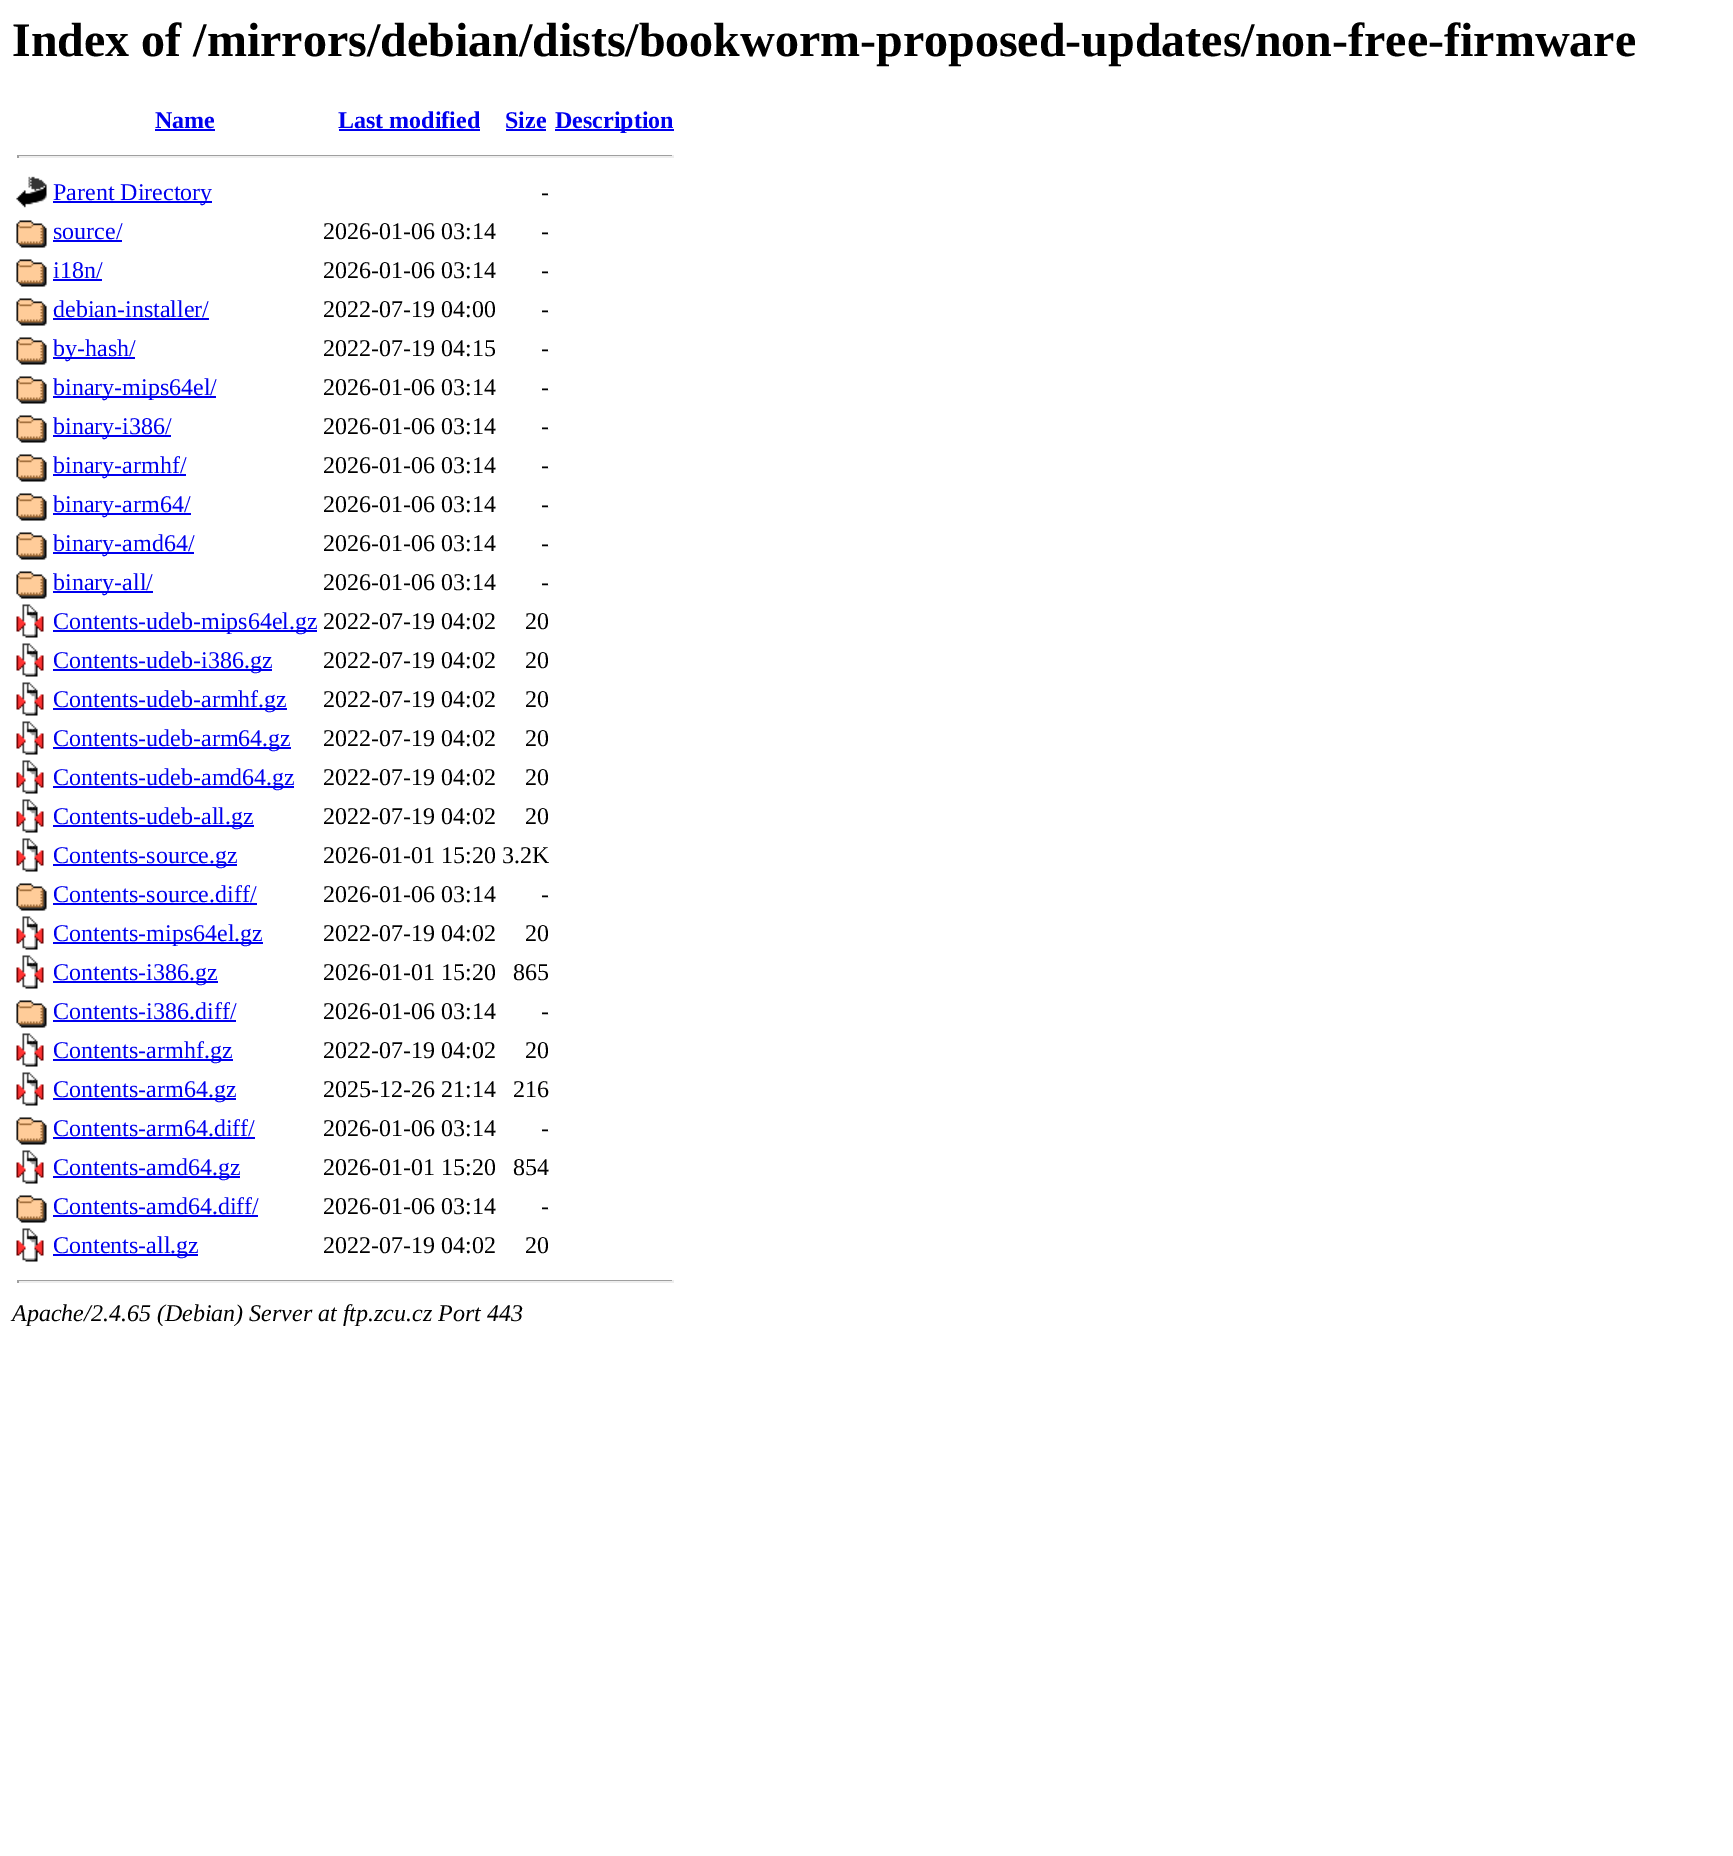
%!PS
<< /PageSize [1733 1856] >> setpagedevice
/picture { 5 dict begin { /h /w /y /x /name } { exch def } forall
  gsave x y translate w h scale
  w h 8 [w 0 0 h 0 0] name (r) file false 3 colorimage grestore end } def
0 1856 translate 1 -1 scale
4 setmiterlimit
1 setgray
0 0 1733 1856 rectfill
/LiberationSerif-Bold [48 0 0 -48 0 0] selectfont
0 setgray
12 56 moveto (Index of /mirrors/debian/dists/bookworm-proposed-updates/non-free-firmware) show
/LiberationSerif-Bold [24 0 0 -24 0 0] selectfont
0 0 0.933 setrgbcolor
155 128 moveto (Name) show
155 129 60 2 rectfill
338 128 moveto (Last modified) show
339 129 141 2 rectfill
505 128 moveto (Size) show
506 129 40 2 rectfill
555 129 119 2 rectfill
555 128 moveto (Description) show
0.624 setgray
17 155 657 1 rectfill
0.933 setgray
672 155 2 3 rectfill
17 156 657 2 rectfill
0.624 setgray
17 155 2 3 rectfill
(img1.rgb) 16 176 31 32 picture
0 0 0.933 setrgbcolor
53 201 159 2 rectfill
/LiberationSerif-Regular [24 0 0 -24 0 0] selectfont
53 200 moveto (Parent Directory) show
0 setgray
541 200 moveto (-) show
(img2.rgb) 16 220 31 28 picture
0 0 0.933 setrgbcolor
53 239 moveto (source/) show
53 240 69 2 rectfill
0 setgray
323 239 moveto (2026-01-06 03:14) show
541 239 moveto (-) show
(img2.rgb) 16 259 31 28 picture
0 0 0.933 setrgbcolor
53 278 moveto (i18n/) show
53 279 49 2 rectfill
0 setgray
323 278 moveto (2026-01-06 03:14) show
541 278 moveto (-) show
(img2.rgb) 16 298 31 28 picture
0 0 0.933 setrgbcolor
53 317 moveto (debian-installer/) show
53 318 156 2 rectfill
0 setgray
323 317 moveto (2022-07-19 04:00) show
541 317 moveto (-) show
(img2.rgb) 16 337 31 28 picture
0 0 0.933 setrgbcolor
53 357 82 2 rectfill
53 356 moveto (by-hash/) show
0 setgray
323 356 moveto (2022-07-19 04:15) show
541 356 moveto (-) show
(img2.rgb) 16 376 31 28 picture
0 0 0.933 setrgbcolor
53 396 163 2 rectfill
53 395 moveto (binary-mips64el/) show
0 setgray
323 395 moveto (2026-01-06 03:14) show
541 395 moveto (-) show
(img2.rgb) 16 415 31 28 picture
0 0 0.933 setrgbcolor
53 435 118 2 rectfill
53 434 moveto (binary-i386/) show
0 setgray
323 434 moveto (2026-01-06 03:14) show
541 434 moveto (-) show
(img2.rgb) 16 454 31 28 picture
0 0 0.933 setrgbcolor
53 474 133 2 rectfill
53 473 moveto (binary-armhf/) show
0 setgray
323 473 moveto (2026-01-06 03:14) show
541 473 moveto (-) show
(img2.rgb) 16 493 31 28 picture
0 0 0.933 setrgbcolor
53 513 138 2 rectfill
53 512 moveto (binary-arm64/) show
0 setgray
323 512 moveto (2026-01-06 03:14) show
541 512 moveto (-) show
(img2.rgb) 16 532 31 28 picture
0 0 0.933 setrgbcolor
53 552 141 2 rectfill
53 551 moveto (binary-amd64/) show
0 setgray
323 551 moveto (2026-01-06 03:14) show
541 551 moveto (-) show
(img2.rgb) 16 571 31 28 picture
0 0 0.933 setrgbcolor
53 591 100 2 rectfill
53 590 moveto (binary-all/) show
0 setgray
323 590 moveto (2026-01-06 03:14) show
541 590 moveto (-) show
(img3.rgb) 16 604 28 34 picture
0 0 0.933 setrgbcolor
53 630 264 2 rectfill
53 629 moveto (Contents-udeb-mips64el.gz) show
0 setgray
323 629 moveto (2022-07-19 04:02) show
525 629 moveto (20) show
(img3.rgb) 16 643 28 34 picture
0 0 0.933 setrgbcolor
53 669 219 2 rectfill
53 668 moveto (Contents-udeb-i386.gz) show
0 setgray
323 668 moveto (2022-07-19 04:02) show
525 668 moveto (20) show
(img3.rgb) 16 682 28 34 picture
0 0 0.933 setrgbcolor
53 708 234 2 rectfill
53 707 moveto (Contents-udeb-armhf.gz) show
0 setgray
323 707 moveto (2022-07-19 04:02) show
525 707 moveto (20) show
(img3.rgb) 16 721 28 34 picture
0 0 0.933 setrgbcolor
53 747 238 2 rectfill
53 746 moveto (Contents-udeb-arm64.gz) show
0 setgray
323 746 moveto (2022-07-19 04:02) show
525 746 moveto (20) show
(img3.rgb) 16 760 28 34 picture
0 0 0.933 setrgbcolor
53 786 241 2 rectfill
53 785 moveto (Contents-udeb-amd64.gz) show
0 setgray
323 785 moveto (2022-07-19 04:02) show
525 785 moveto (20) show
(img3.rgb) 16 799 28 34 picture
0 0 0.933 setrgbcolor
53 825 201 2 rectfill
53 824 moveto (Contents-udeb-all.gz) show
0 setgray
323 824 moveto (2022-07-19 04:02) show
525 824 moveto (20) show
(img3.rgb) 16 838 28 34 picture
0 0 0.933 setrgbcolor
53 864 184 2 rectfill
53 863 moveto (Contents-source.gz) show
0 setgray
323 863 moveto (2026-01-01 15:20 3.2K) show
(img2.rgb) 16 883 31 28 picture
0 0 0.933 setrgbcolor
53 902 moveto (Contents-source.diff/) show
53 903 204 2 rectfill
0 setgray
323 902 moveto (2026-01-06 03:14) show
541 902 moveto (-) show
(img3.rgb) 16 916 28 34 picture
0 0 0.933 setrgbcolor
53 942 210 2 rectfill
53 941 moveto (Contents-mips64el.gz) show
0 setgray
323 941 moveto (2022-07-19 04:02) show
525 941 moveto (20) show
(img3.rgb) 16 955 28 34 picture
0 0 0.933 setrgbcolor
53 981 165 2 rectfill
53 980 moveto (Contents-i386.gz) show
0 setgray
323 980 moveto (2026-01-01 15:20) show
513 980 moveto (865) show
(img2.rgb) 16 1000 31 28 picture
0 0 0.933 setrgbcolor
53 1019 moveto (Contents-i386.diff/) show
53 1020 183 2 rectfill
0 setgray
323 1019 moveto (2026-01-06 03:14) show
541 1019 moveto (-) show
(img3.rgb) 16 1033 28 34 picture
0 0 0.933 setrgbcolor
53 1059 180 2 rectfill
53 1058 moveto (Contents-armhf.gz) show
0 setgray
323 1058 moveto (2022-07-19 04:02) show
525 1058 moveto (20) show
(img3.rgb) 16 1072 28 34 picture
0 0 0.933 setrgbcolor
53 1098 183 2 rectfill
53 1097 moveto (Contents-arm64.gz) show
0 setgray
323 1097 moveto (2025-12-26 21:14) show
513 1097 moveto (216) show
(img2.rgb) 16 1117 31 28 picture
0 0 0.933 setrgbcolor
53 1136 moveto (Contents-arm64.diff/) show
53 1137 202 2 rectfill
0 setgray
323 1136 moveto (2026-01-06 03:14) show
541 1136 moveto (-) show
(img3.rgb) 16 1150 28 34 picture
0 0 0.933 setrgbcolor
53 1176 187 2 rectfill
53 1175 moveto (Contents-amd64.gz) show
0 setgray
323 1175 moveto (2026-01-01 15:20) show
513 1175 moveto (854) show
(img2.rgb) 16 1195 31 28 picture
0 0 0.933 setrgbcolor
53 1214 moveto (Contents-amd64.diff/) show
53 1215 205 2 rectfill
0 setgray
323 1214 moveto (2026-01-06 03:14) show
541 1214 moveto (-) show
(img3.rgb) 16 1228 28 34 picture
0 0 0.933 setrgbcolor
53 1254 145 2 rectfill
53 1253 moveto (Contents-all.gz) show
0 setgray
323 1253 moveto (2022-07-19 04:02) show
525 1253 moveto (20) show
0.624 setgray
17 1280 657 1 rectfill
0.933 setgray
672 1280 2 3 rectfill
17 1281 657 2 rectfill
0.624 setgray
17 1280 2 3 rectfill
/LiberationSerif-Italic [24 0 0 -24 0 0] selectfont
0 setgray
12 1321 moveto (Apache/2.4.65 \(Debian\) Server at ftp.zcu.cz Port 443) show
showpage
